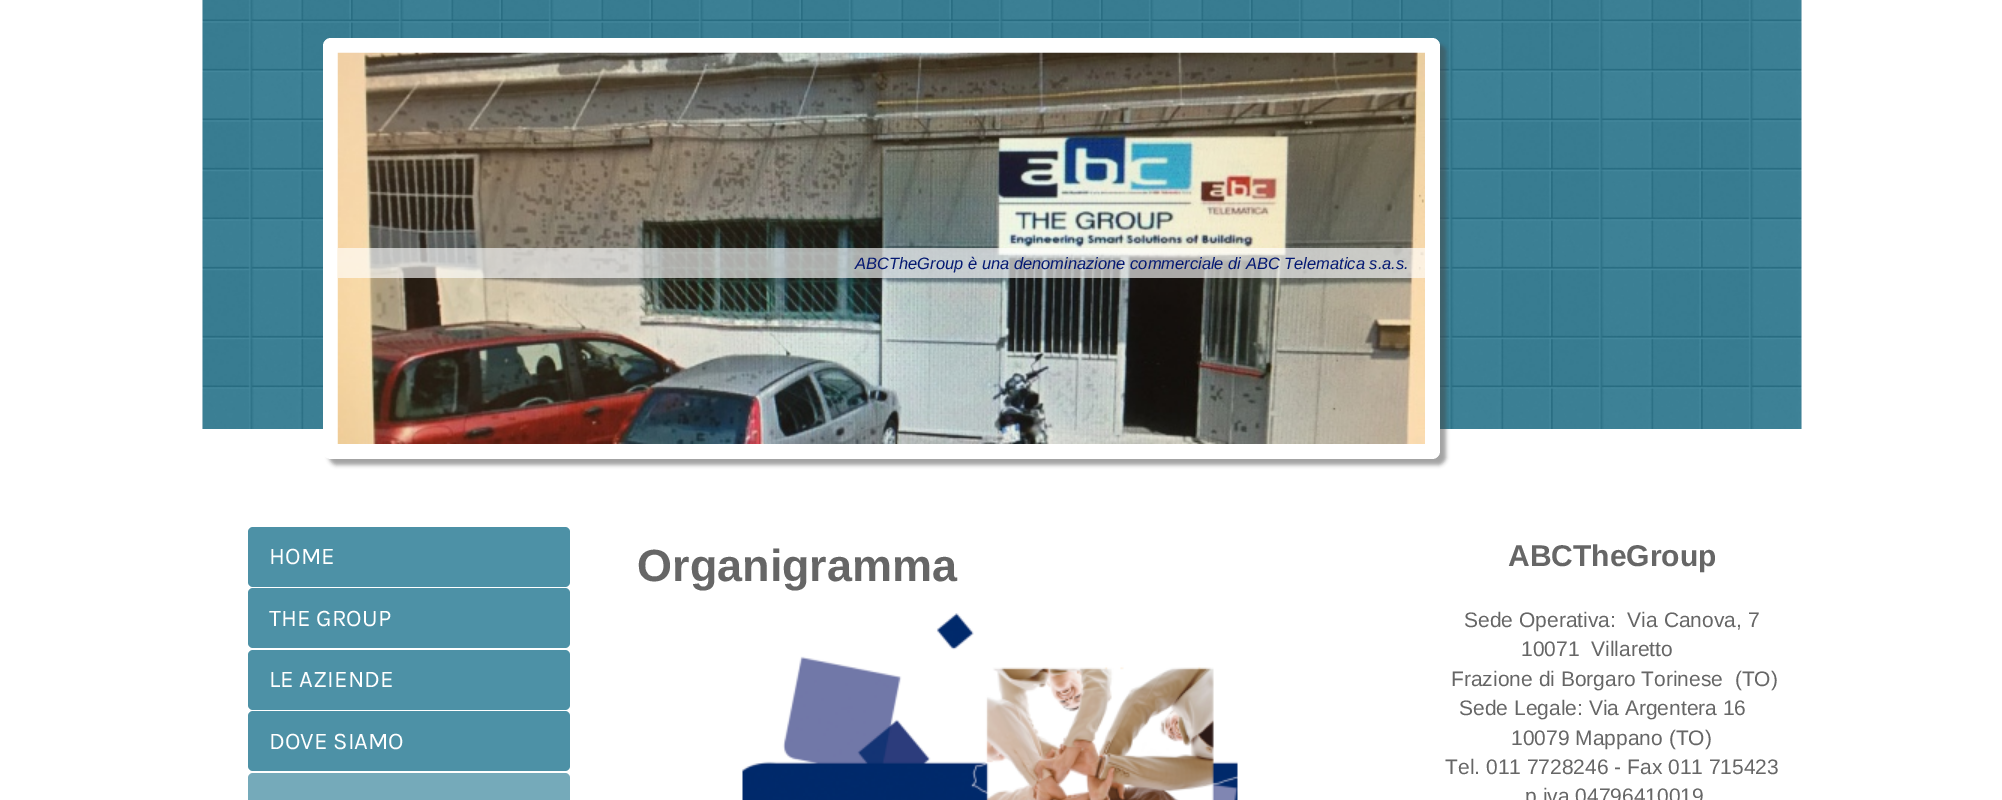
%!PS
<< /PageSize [2002 800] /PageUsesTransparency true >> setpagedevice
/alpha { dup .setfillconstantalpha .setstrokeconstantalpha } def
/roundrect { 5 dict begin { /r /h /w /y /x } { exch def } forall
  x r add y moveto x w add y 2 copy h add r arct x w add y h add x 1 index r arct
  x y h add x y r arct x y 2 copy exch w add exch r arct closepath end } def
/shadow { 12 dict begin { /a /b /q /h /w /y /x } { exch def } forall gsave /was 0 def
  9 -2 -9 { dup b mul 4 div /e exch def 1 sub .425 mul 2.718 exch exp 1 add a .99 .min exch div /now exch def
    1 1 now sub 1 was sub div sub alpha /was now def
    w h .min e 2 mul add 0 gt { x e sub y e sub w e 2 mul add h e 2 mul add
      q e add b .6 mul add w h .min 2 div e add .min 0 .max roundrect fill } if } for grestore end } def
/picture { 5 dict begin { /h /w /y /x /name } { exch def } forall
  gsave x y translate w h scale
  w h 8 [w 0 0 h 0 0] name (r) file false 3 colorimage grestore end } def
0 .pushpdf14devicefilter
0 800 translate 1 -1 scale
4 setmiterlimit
1 setgray
0 0 2002 800 rectfill
(img1.rgb) 202 0 1600 429 picture
0.275 setgray
329 44 1117 421 8 2 0.5 shadow
1 setgray
323 38 1117 421 8 roundrect fill
(img2.rgb) 337 52 1088 392 picture
0.64 alpha
338 248 1087 30 rectfill
/LiberationSans-Italic [16.5 0 0 -16.5 0 0] selectfont
1 alpha
0.02 0.098 0.447 setrgbcolor
855 269 moveto (ABCTheGroup è una denominazione commerciale di ABC Telematica s.a.s.) show
0.302 0.569 0.651 setrgbcolor
248 527 322 60 5 roundrect fill
/Karla-Regular [24 0 0 -24 0 0] selectfont
1 setgray
269 564 moveto (HOME) show
0.302 0.569 0.651 setrgbcolor
248 588 322 60 5 roundrect fill
1 setgray
269 626 moveto (THE GROUP) show
0.302 0.569 0.651 setrgbcolor
248 650 322 60 5 roundrect fill
1 setgray
269 687 moveto (LE AZIENDE) show
0.302 0.569 0.651 setrgbcolor
248 711 322 60 5 roundrect fill
1 setgray
269 749 moveto (DOVE SIAMO) show
0.459 0.667 0.729 setrgbcolor
248 773 322 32 5 roundrect fill
/LiberationSans-Bold [45 0 0 -45 0 0] selectfont
0.4 setgray
637 581 moveto (Organigramma) show
(img3.rgb) 742 613 496 187 picture
/LiberationSans-Bold [30 0 0 -30 0 0] selectfont
1508 566 moveto (ABCTheGroup) show
/LiberationSans-Regular [21 0 0 -21 0 0] selectfont
1464 627 moveto (Sede Operativa:  Via Canova, 7) show
1521 656 moveto (10071  Villaretto) show
1451 686 moveto (Frazione di Borgaro Torinese  \(TO\)) show
1459 715 moveto (Sede Legale: Via Argentera 16) show
1511 745 moveto (10079 Mappano \(TO\)) show
1445 774 moveto (Tel. 011 7728246 - Fax 011 715423) show
1525 803 moveto (p.iva 04796410019) show
.poppdf14devicefilter showpage
